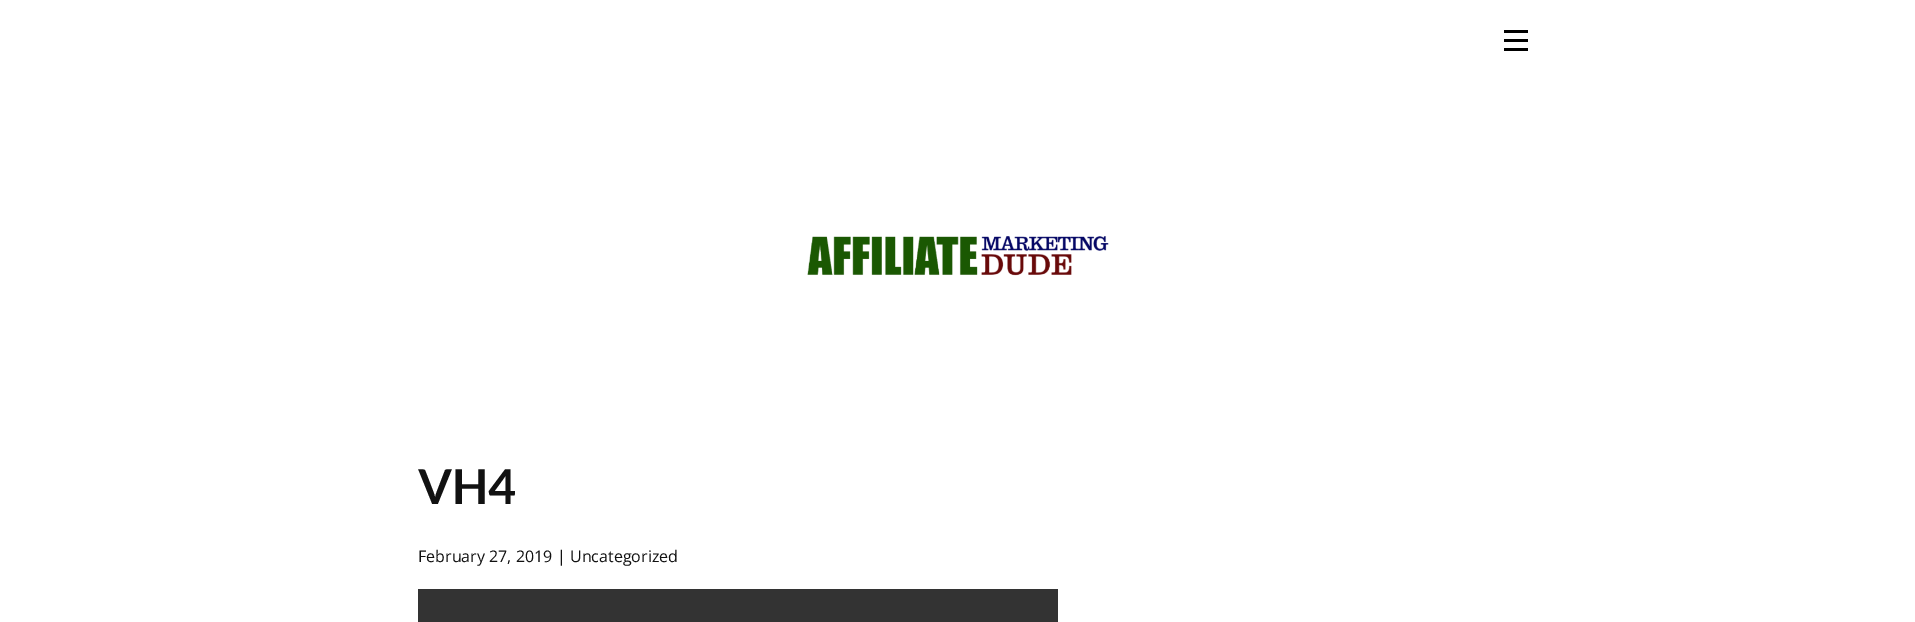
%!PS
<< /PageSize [1915 622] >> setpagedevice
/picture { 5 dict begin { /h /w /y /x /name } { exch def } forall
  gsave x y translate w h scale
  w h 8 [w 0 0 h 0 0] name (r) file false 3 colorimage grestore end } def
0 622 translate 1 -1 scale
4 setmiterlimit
1 setgray
0 0 1915 622 rectfill
0 setgray
1504 30 24 3 rectfill
1504 39 24 3 rectfill
1504 48 24 3 rectfill
(img1.rgb) 807 236 302 40 picture
/Lato-Bold [48 0 0 -48 0 0] selectfont
0.067 setgray
418 504 moveto (VH4) show
/OpenSans-Regular [16 0 0 -16 0 0] selectfont
418 562 moveto (February 27, 2019) show
557 562 moveto (|) show
570 562 moveto (Uncategorized) show
0.2 setgray
418 589 640 33 rectfill
showpage
